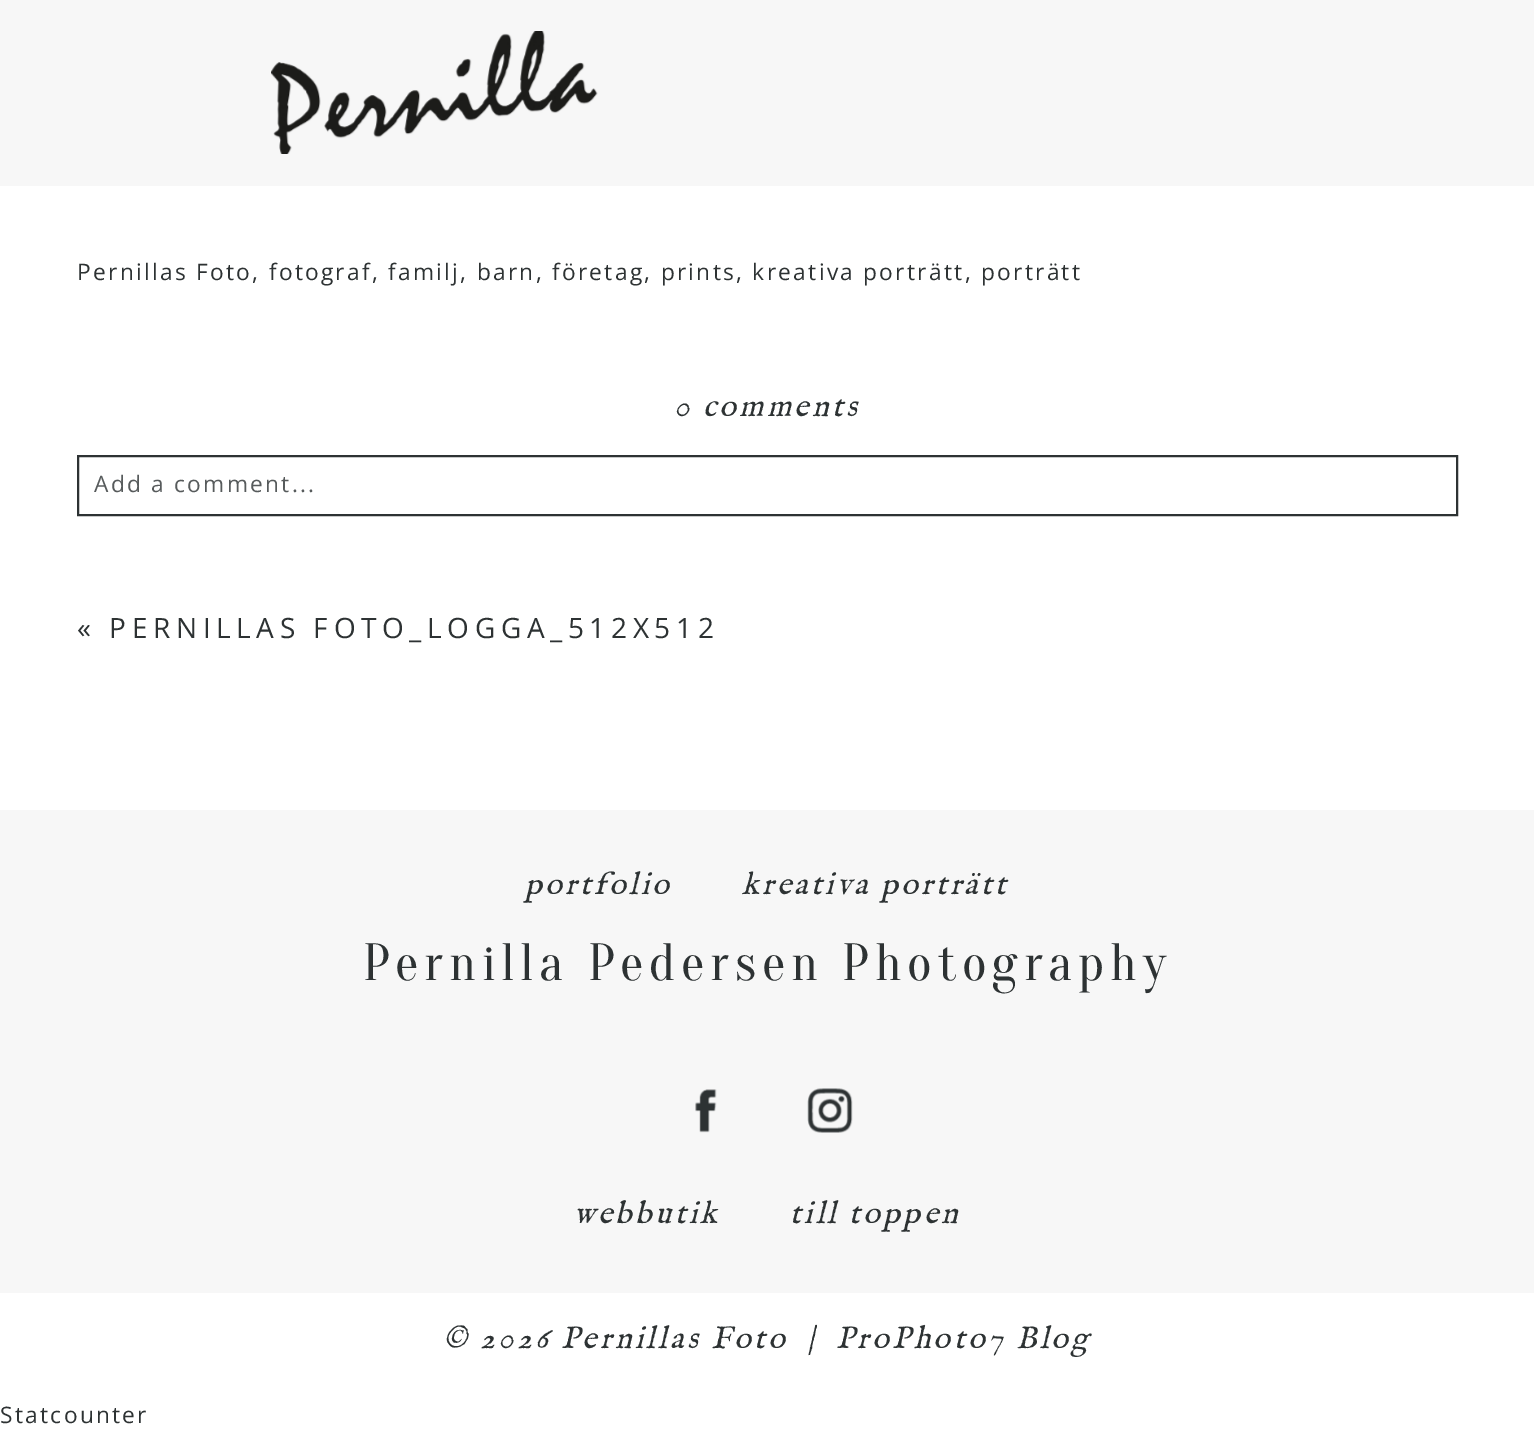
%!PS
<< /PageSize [1534 1445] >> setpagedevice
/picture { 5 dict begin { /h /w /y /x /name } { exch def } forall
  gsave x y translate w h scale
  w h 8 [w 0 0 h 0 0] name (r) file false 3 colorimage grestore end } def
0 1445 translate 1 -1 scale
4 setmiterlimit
1 setgray
0 0 1534 1445 rectfill
0.969 setgray
0 0 1534 186 rectfill
(img1.rgb) 271 31 327 123 picture
/OpenSans-Regular [22.75 0 0 -22.75 0 0] selectfont
0.176 0.196 0.2 setrgbcolor
77 280 moveto 2.27 0 (Pernillas Foto, fotograf, familj, barn, företag, prints, kreativa porträtt, porträtt) ashow
/IMFELLEnglish-Italic [31.5 0 0 -31.5 0 0] selectfont
674 416 moveto 3.15 0 (0 comments) ashow
2 setlinewidth
78 456 1379 59 rectstroke
/OpenSans-Regular [22.75 0 0 -22.75 0 0] selectfont
0.341 0.357 0.361 setrgbcolor
94 492 moveto 2.27 0 (Add a comment...) ashow
/OpenSans-Regular [28 0 0 -28 0 0] selectfont
0.176 0.196 0.2 setrgbcolor
77 638 moveto 5.6 0 (« PERNILLAS FOTO_LOGGA_512X512) ashow
0.969 setgray
0 810 1534 483 rectfill
/IMFELLEnglish-Italic [31.5 0 0 -31.5 0 0] selectfont
0.176 0.196 0.2 setrgbcolor
525 894 moveto 3.15 0 (portfolio) ashow
742 894 moveto 3.15 0 (kreativa porträtt) ashow
/Oranienbaum-Regular [52.5 0 0 -52.5 0 0] selectfont
363 980 moveto 5.75 0 (Pernilla Pedersen Photography) ashow
(img2.rgb) 695 1089 22 44 picture
(img3.rgb) 807 1088 46 45 picture
/IMFELLEnglish-Italic [31.5 0 0 -31.5 0 0] selectfont
574 1223 moveto 3.15 0 (webbutik) ashow
790 1223 moveto 3.15 0 (till toppen) ashow
443 1348 moveto 3.15 0 (© 2026 Pernillas Foto) ashow
807 1348 moveto 3.15 0 (|) ashow
836 1348 moveto 3.15 0 (ProPhoto7 Blog) ashow
/OpenSans-Regular [22.75 0 0 -22.75 0 0] selectfont
0 1423 moveto 2.27 0 (Statcounter) ashow
showpage
